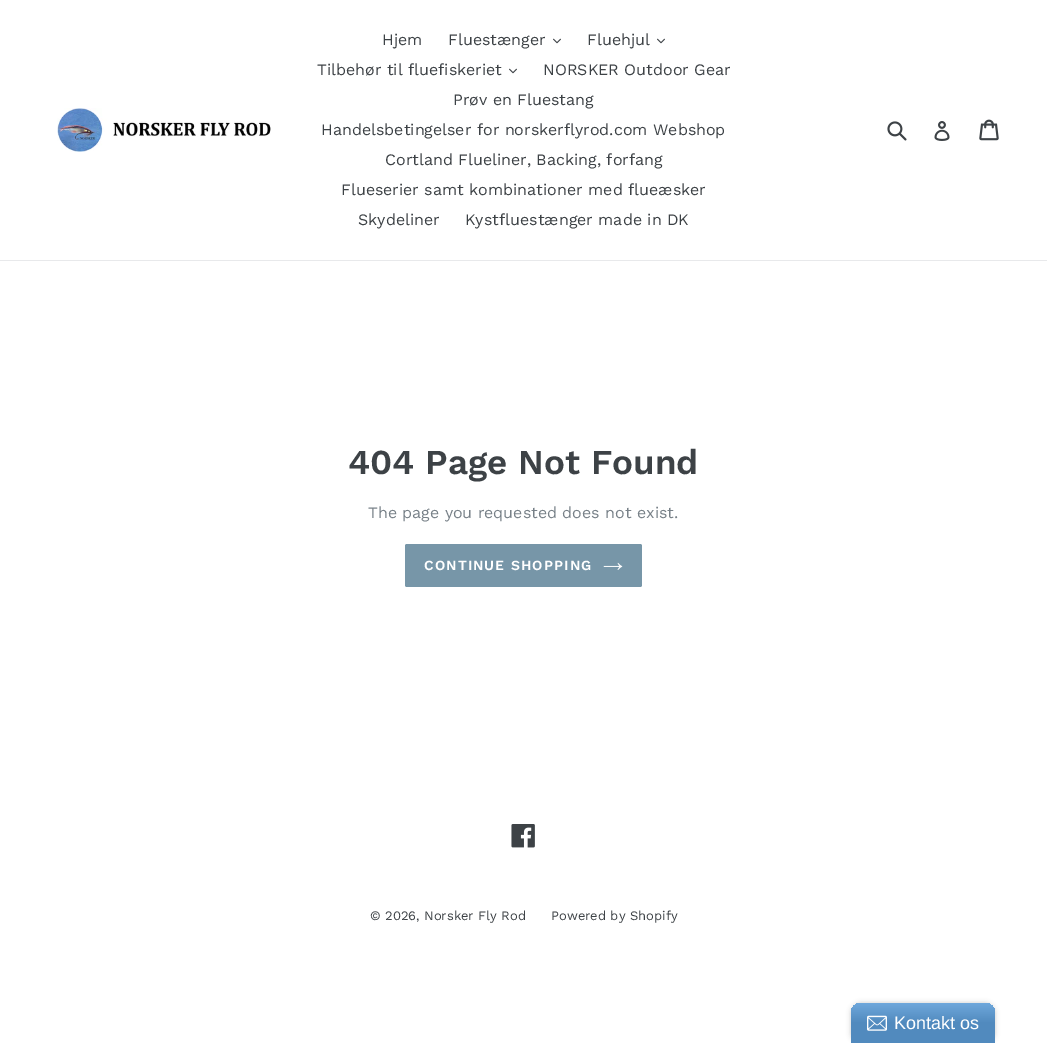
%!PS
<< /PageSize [1047 1043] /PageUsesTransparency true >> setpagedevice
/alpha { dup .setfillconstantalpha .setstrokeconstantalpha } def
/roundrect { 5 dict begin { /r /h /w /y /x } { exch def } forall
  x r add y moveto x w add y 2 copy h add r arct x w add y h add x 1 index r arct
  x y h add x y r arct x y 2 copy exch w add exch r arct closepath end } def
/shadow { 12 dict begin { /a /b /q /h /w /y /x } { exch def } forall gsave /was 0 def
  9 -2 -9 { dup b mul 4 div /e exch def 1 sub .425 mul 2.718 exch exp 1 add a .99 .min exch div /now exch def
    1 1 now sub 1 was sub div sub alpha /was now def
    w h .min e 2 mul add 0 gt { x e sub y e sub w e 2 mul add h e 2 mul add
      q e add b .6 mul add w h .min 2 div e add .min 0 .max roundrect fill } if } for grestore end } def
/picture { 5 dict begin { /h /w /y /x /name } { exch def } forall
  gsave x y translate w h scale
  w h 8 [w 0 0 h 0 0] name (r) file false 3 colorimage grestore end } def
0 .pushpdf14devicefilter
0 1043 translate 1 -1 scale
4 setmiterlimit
1 setgray
0 0 1047 1043 rectfill
0.91 0.914 0.922 setrgbcolor
0 260 1047 1 rectfill
(img1.rgb) 57 108 214 44 picture
/WorkSans-Regular [16 0 0 -16 0 0] selectfont
0.239 0.259 0.275 setrgbcolor
382 45 moveto (Hjem) show
448 45 moveto (Fluestænger) show
(img2.rgb) 553 38 8 6 picture
587 45 moveto (Fluehjul) show
(img2.rgb) 657 38 8 6 picture
317 75 moveto (Tilbehør til fluefiskeriet) show
(img2.rgb) 509 68 8 6 picture
543 75 moveto (NORSKER Outdoor Gear) show
453 105 moveto (Prøv en Fluestang) show
321 135 moveto (Handelsbetingelser for norskerflyrod.com Webshop) show
385 165 moveto (Cortland Flueliner, Backing, forfang) show
341 195 moveto (Flueserier samt kombinationer med flueæsker) show
358 225 moveto (Skydeliner) show
465 225 moveto (Kystfluestænger made in DK) show
(img3.rgb) 887 121 20 20 picture
(img4.rgb) 934 121 16 20 picture
(img5.rgb) 979 119 20 22 picture
/WorkSans-SemiBold [35 0 0 -35 0 0] selectfont
348 474 moveto (404 Page Not Found) show
/WorkSans-Regular [16 0 0 -16 0 0] selectfont
0.471 0.506 0.533 setrgbcolor
368 518 moveto (The page you requested does not exist.) show
0.467 0.588 0.659 setrgbcolor
405 544 237 43 2 roundrect fill
/WorkSans-SemiBold [14 0 0 -14 0 0] selectfont
1 setgray
424 570 moveto 1.1 0 (CONTINUE SHOPPING) ashow
(img6.rgb) 603 562 20 8 picture
(img7.rgb) 511 824 24 24 picture
/WorkSans-Regular [13 0 0 -13 0 0] selectfont
0.239 0.259 0.275 setrgbcolor
370 920 moveto (© 2026, Norsker Fly Rod) show
551 920 moveto (Powered by Shopify) show
0 setgray
851 1003 144 40 10 2.5 0.2 shadow
gsave newpath 861 1003 moveto 985 1003 lineto 990.5 1003 995 1007.5 995 1013 curveto 995 1043 lineto 851 1043 lineto 851 1013 lineto 851 1007.5 855.5 1003 861 1003 curveto closepath clip newpath
<< /ShadingType 2 /ColorSpace /DeviceRGB /Coords [923 1003 923 1043] /Extend [true true] /Function << /FunctionType 3 /Domain [0 1] /Functions [<< /FunctionType 2 /Domain [0 1] /C0 [0.435 0.659 0.863] /C1 [0.318 0.541 0.745] /N 1 >> << /FunctionType 2 /Domain [0 1] /C0 [0.318 0.541 0.745] /C1 [0.318 0.541 0.745] /N 1 >>] /Bounds [0.5] /Encode [0 1 0 1] >> >> shfill grestore
(img8.rgb) 867 1015 20 16 picture
/LiberationSans-Regular [18 0 0 -18 0 0] selectfont
1 setgray
894 1029 moveto (Kontakt os) show
.poppdf14devicefilter showpage
